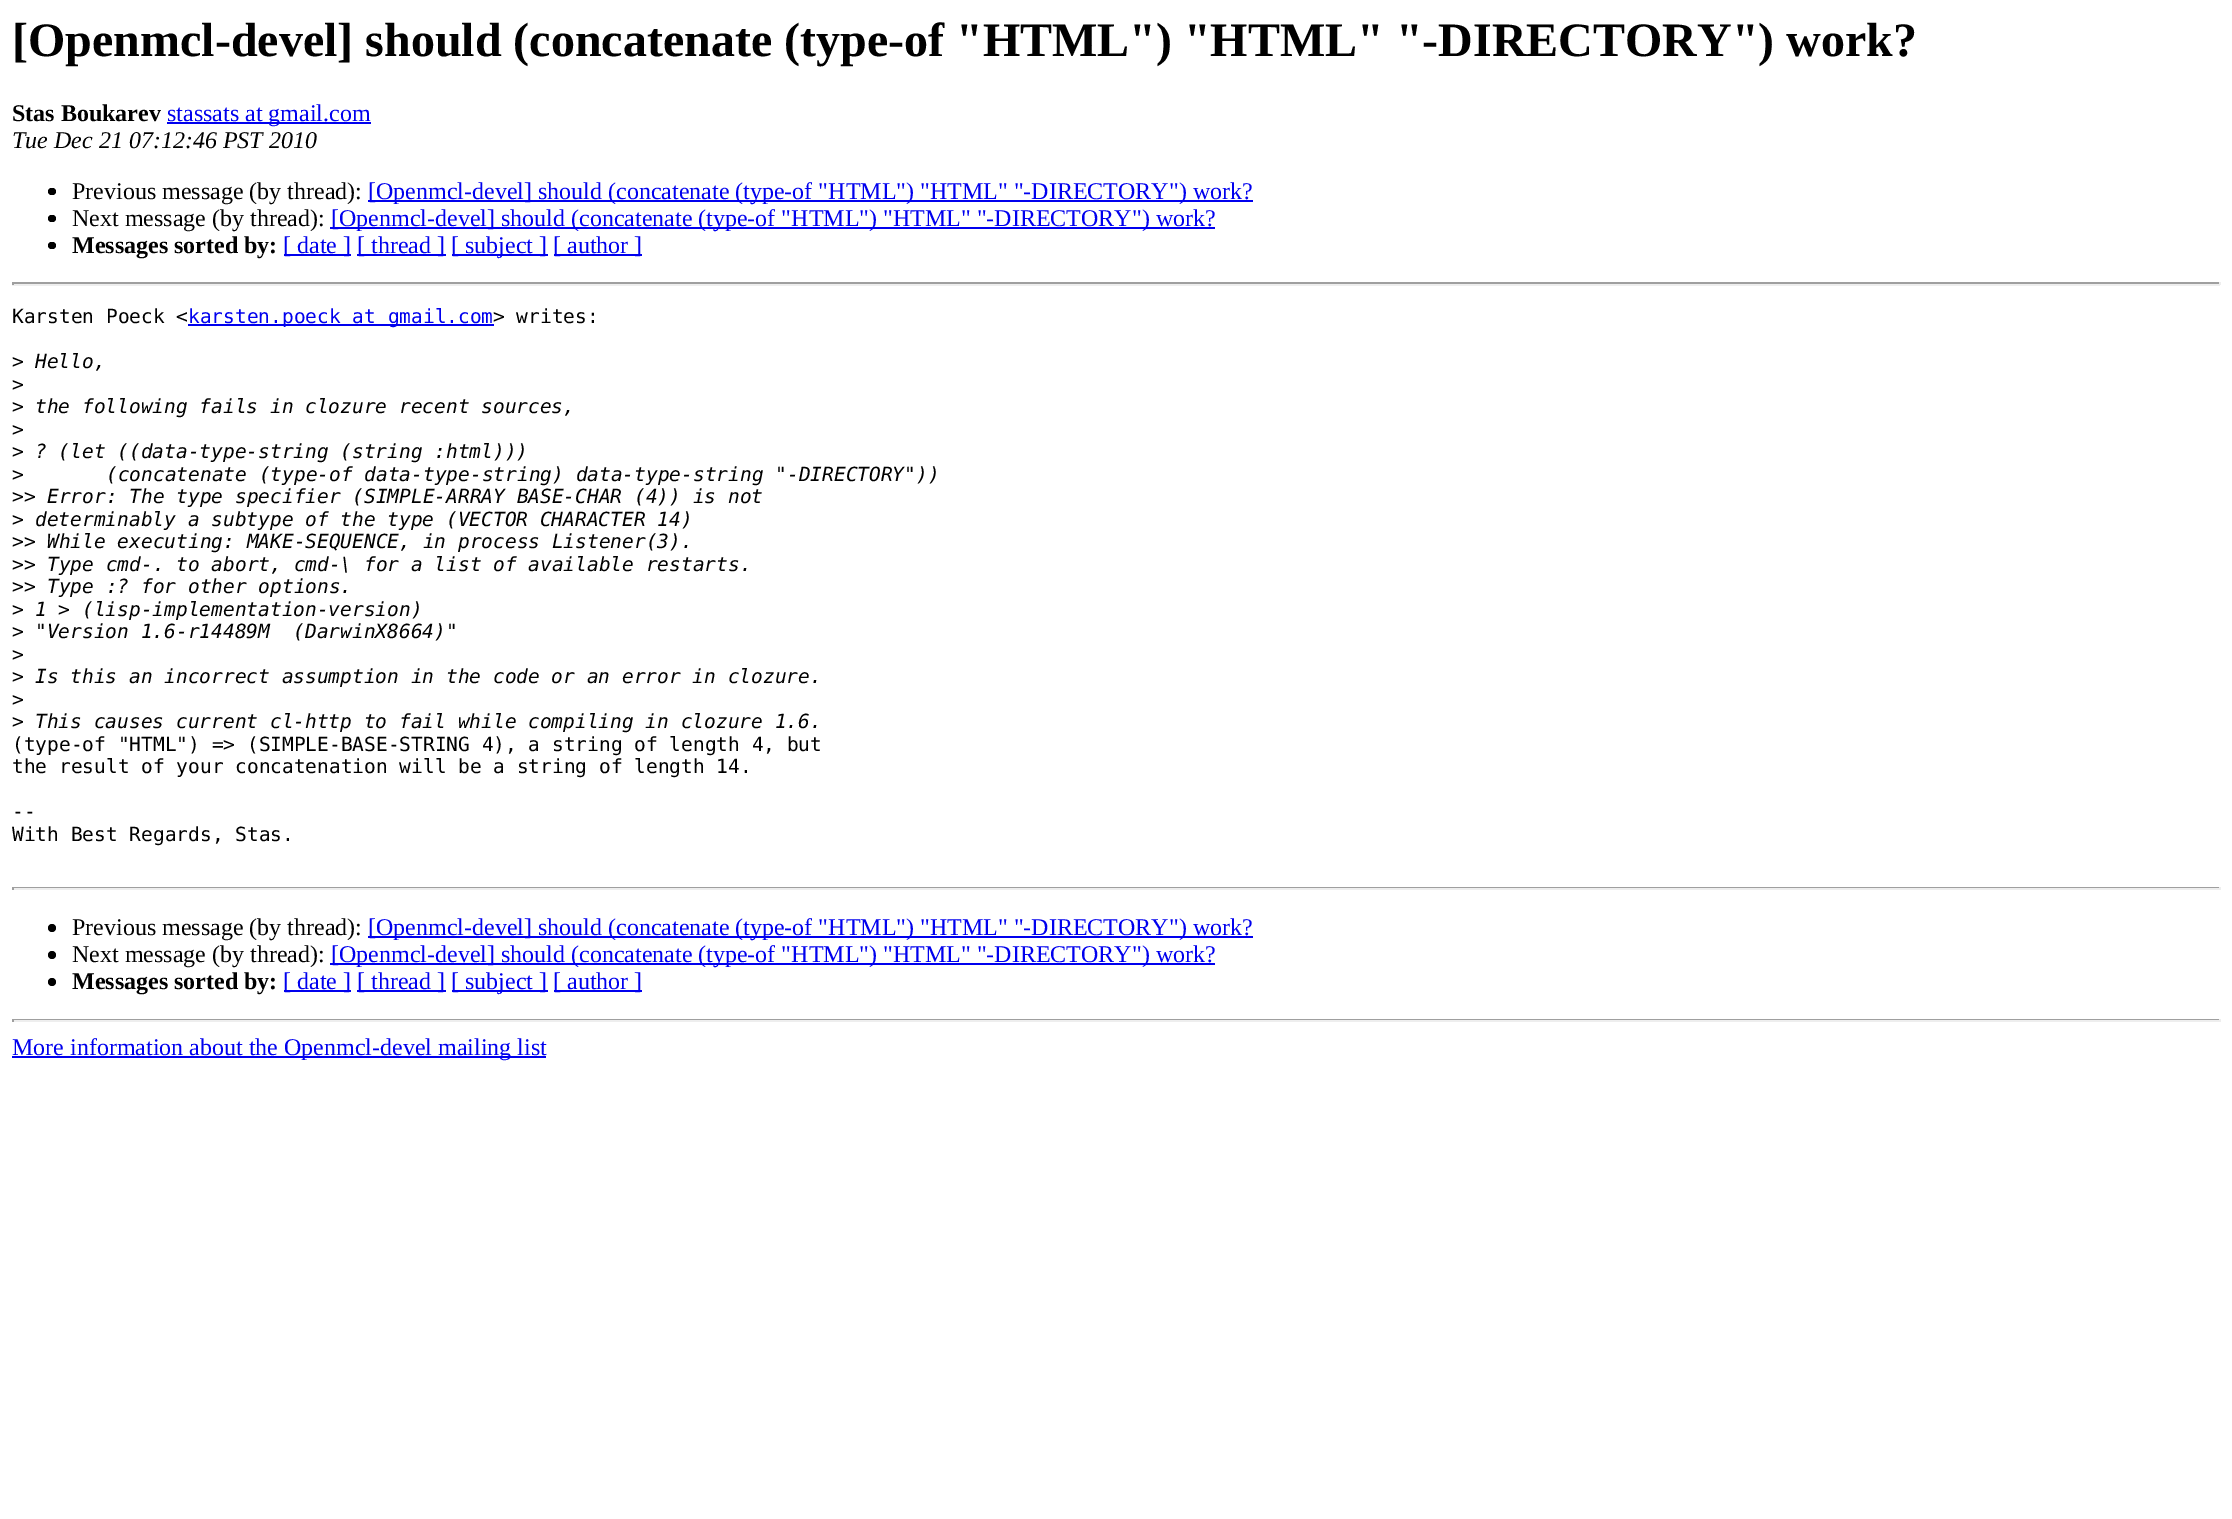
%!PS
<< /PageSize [2232 1519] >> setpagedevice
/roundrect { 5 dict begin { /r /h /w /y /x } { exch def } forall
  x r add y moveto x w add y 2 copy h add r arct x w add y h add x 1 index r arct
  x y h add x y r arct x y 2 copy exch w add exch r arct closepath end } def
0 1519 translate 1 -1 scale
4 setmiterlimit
1 setgray
0 0 2232 1519 rectfill
/LiberationSerif-Bold [48 0 0 -48 0 0] selectfont
0 setgray
12 56 moveto ([Openmcl-devel] should \(concatenate \(type-of "HTML"\) "HTML" "-DIRECTORY"\) work?) show
/LiberationSerif-Bold [24 0 0 -24 0 0] selectfont
12 121 moveto (Stas Boukarev) show
0 0 0.933 setrgbcolor
167 122 204 2 rectfill
/LiberationSerif-Regular [24 0 0 -24 0 0] selectfont
167 121 moveto (stassats at gmail.com) show
/LiberationSerif-Italic [24 0 0 -24 0 0] selectfont
0 setgray
12 148 moveto (Tue Dec 21 07:12:46 PST 2010) show
48 188 8 7 3.5 roundrect fill
/LiberationSerif-Regular [24 0 0 -24 0 0] selectfont
72 199 moveto (Previous message \(by thread\):) show
0 0 0.933 setrgbcolor
368 200 885 2 rectfill
368 199 moveto ([Openmcl-devel] should \(concatenate \(type-of "HTML"\) "HTML" "-DIRECTORY"\) work?) show
0 setgray
48 215 8 7 3.5 roundrect fill
72 226 moveto (Next message \(by thread\):) show
0 0 0.933 setrgbcolor
330 227 885 2 rectfill
331 226 moveto ([Openmcl-devel] should \(concatenate \(type-of "HTML"\) "HTML" "-DIRECTORY"\) work?) show
0 setgray
48 242 8 7 3.5 roundrect fill
/LiberationSerif-Bold [24 0 0 -24 0 0] selectfont
72 253 moveto (Messages sorted by:) show
0 0 0.933 setrgbcolor
284 254 67 2 rectfill
/LiberationSerif-Regular [24 0 0 -24 0 0] selectfont
283 253 moveto ([ date ]) show
357 254 89 2 rectfill
357 253 moveto ([ thread ]) show
452 254 96 2 rectfill
451 253 moveto ([ subject ]) show
554 254 88 2 rectfill
553 253 moveto ([ author ]) show
0.624 setgray
12 282 2208 2 rectfill
0.933 setgray
2219 282 2 3 rectfill
12 284 2208 2 rectfill
0.624 setgray
12 282 2 3 rectfill
/DejaVuSansMono-Regular [19.5 0 0 -19.5 0 0] selectfont
0 setgray
12 323 moveto (Karsten Poeck <) show
0 0 0.933 setrgbcolor
188 324 306 2 rectfill
188 323 moveto (karsten.poeck at gmail.com) show
0 setgray
493 323 moveto (> writes:) show
12 368 moveto (>) show
/DejaVuSansMono-Italic [19.5 0 0 -19.5 0 0] selectfont
35 368 moveto (Hello,) show
/DejaVuSansMono-Regular [19.5 0 0 -19.5 0 0] selectfont
12 391 moveto (>) show
12 413 moveto (>) show
/DejaVuSansMono-Italic [19.5 0 0 -19.5 0 0] selectfont
35 413 moveto (the following fails in clozure recent sources,) show
/DejaVuSansMono-Regular [19.5 0 0 -19.5 0 0] selectfont
12 436 moveto (>) show
12 458 moveto (>) show
/DejaVuSansMono-Italic [19.5 0 0 -19.5 0 0] selectfont
35 458 moveto (? \(let \(\(data-type-string \(string :html\)\)\)) show
/DejaVuSansMono-Regular [19.5 0 0 -19.5 0 0] selectfont
12 481 moveto (>) show
/DejaVuSansMono-Italic [19.5 0 0 -19.5 0 0] selectfont
106 481 moveto (\(concatenate \(type-of data-type-string\) data-type-string "-DIRECTORY"\)\)) show
/DejaVuSansMono-Regular [19.5 0 0 -19.5 0 0] selectfont
12 503 moveto (>>) show
/DejaVuSansMono-Italic [19.5 0 0 -19.5 0 0] selectfont
47 503 moveto (Error: The type specifier \(SIMPLE-ARRAY BASE-CHAR \(4\)\) is not) show
/DejaVuSansMono-Regular [19.5 0 0 -19.5 0 0] selectfont
12 526 moveto (>) show
/DejaVuSansMono-Italic [19.5 0 0 -19.5 0 0] selectfont
35 526 moveto (determinably a subtype of the type \(VECTOR CHARACTER 14\)) show
/DejaVuSansMono-Regular [19.5 0 0 -19.5 0 0] selectfont
12 548 moveto (>>) show
/DejaVuSansMono-Italic [19.5 0 0 -19.5 0 0] selectfont
47 548 moveto (While executing: MAKE-SEQUENCE, in process Listener\(3\).) show
/DejaVuSansMono-Regular [19.5 0 0 -19.5 0 0] selectfont
12 571 moveto (>>) show
/DejaVuSansMono-Italic [19.5 0 0 -19.5 0 0] selectfont
47 571 moveto (Type cmd-. to abort, cmd-\\ for a list of available restarts.) show
/DejaVuSansMono-Regular [19.5 0 0 -19.5 0 0] selectfont
12 593 moveto (>>) show
/DejaVuSansMono-Italic [19.5 0 0 -19.5 0 0] selectfont
47 593 moveto (Type :? for other options.) show
/DejaVuSansMono-Regular [19.5 0 0 -19.5 0 0] selectfont
12 616 moveto (>) show
/DejaVuSansMono-Italic [19.5 0 0 -19.5 0 0] selectfont
35 616 moveto (1 > \(lisp-implementation-version\)) show
/DejaVuSansMono-Regular [19.5 0 0 -19.5 0 0] selectfont
12 638 moveto (>) show
/DejaVuSansMono-Italic [19.5 0 0 -19.5 0 0] selectfont
35 638 moveto ("Version 1.6-r14489M  \(DarwinX8664\)") show
/DejaVuSansMono-Regular [19.5 0 0 -19.5 0 0] selectfont
12 661 moveto (>) show
12 683 moveto (>) show
/DejaVuSansMono-Italic [19.5 0 0 -19.5 0 0] selectfont
35 683 moveto (Is this an incorrect assumption in the code or an error in clozure.) show
/DejaVuSansMono-Regular [19.5 0 0 -19.5 0 0] selectfont
12 706 moveto (>) show
12 728 moveto (>) show
/DejaVuSansMono-Italic [19.5 0 0 -19.5 0 0] selectfont
35 728 moveto (This causes current cl-http to fail while compiling in clozure 1.6.) show
/DejaVuSansMono-Regular [19.5 0 0 -19.5 0 0] selectfont
12 751 moveto (\(type-of "HTML"\) => \(SIMPLE-BASE-STRING 4\), a string of length 4, but) show
12 773 moveto (the result of your concatenation will be a string of length 14.) show
12 818 moveto (--) show
12 841 moveto (With Best Regards, Stas.) show
0.624 setgray
12 887 2208 1 rectfill
0.933 setgray
2219 887 2 3 rectfill
12 888 2208 2 rectfill
0.624 setgray
12 887 2 3 rectfill
0 setgray
newpath 52 928 4 0 360 arc closepath fill
/LiberationSerif-Regular [24 0 0 -24 0 0] selectfont
72 935 moveto (Previous message \(by thread\):) show
0 0 0.933 setrgbcolor
368 936 885 2 rectfill
368 935 moveto ([Openmcl-devel] should \(concatenate \(type-of "HTML"\) "HTML" "-DIRECTORY"\) work?) show
0 setgray
newpath 52 955 4 0 360 arc closepath fill
72 962 moveto (Next message \(by thread\):) show
0 0 0.933 setrgbcolor
330 963 885 2 rectfill
331 962 moveto ([Openmcl-devel] should \(concatenate \(type-of "HTML"\) "HTML" "-DIRECTORY"\) work?) show
0 setgray
newpath 52 982 4 0 360 arc closepath fill
/LiberationSerif-Bold [24 0 0 -24 0 0] selectfont
72 989 moveto (Messages sorted by:) show
0 0 0.933 setrgbcolor
284 990 67 2 rectfill
/LiberationSerif-Regular [24 0 0 -24 0 0] selectfont
283 989 moveto ([ date ]) show
357 990 89 2 rectfill
357 989 moveto ([ thread ]) show
452 990 96 2 rectfill
451 989 moveto ([ subject ]) show
554 990 88 2 rectfill
553 989 moveto ([ author ]) show
0.624 setgray
12 1019 2208 1 rectfill
0.933 setgray
2219 1019 2 3 rectfill
12 1020 2208 2 rectfill
0.624 setgray
12 1019 2 3 rectfill
0 0 0.933 setrgbcolor
12 1056 534 2 rectfill
12 1055 moveto (More information about the Openmcl-devel mailing list) show
showpage
